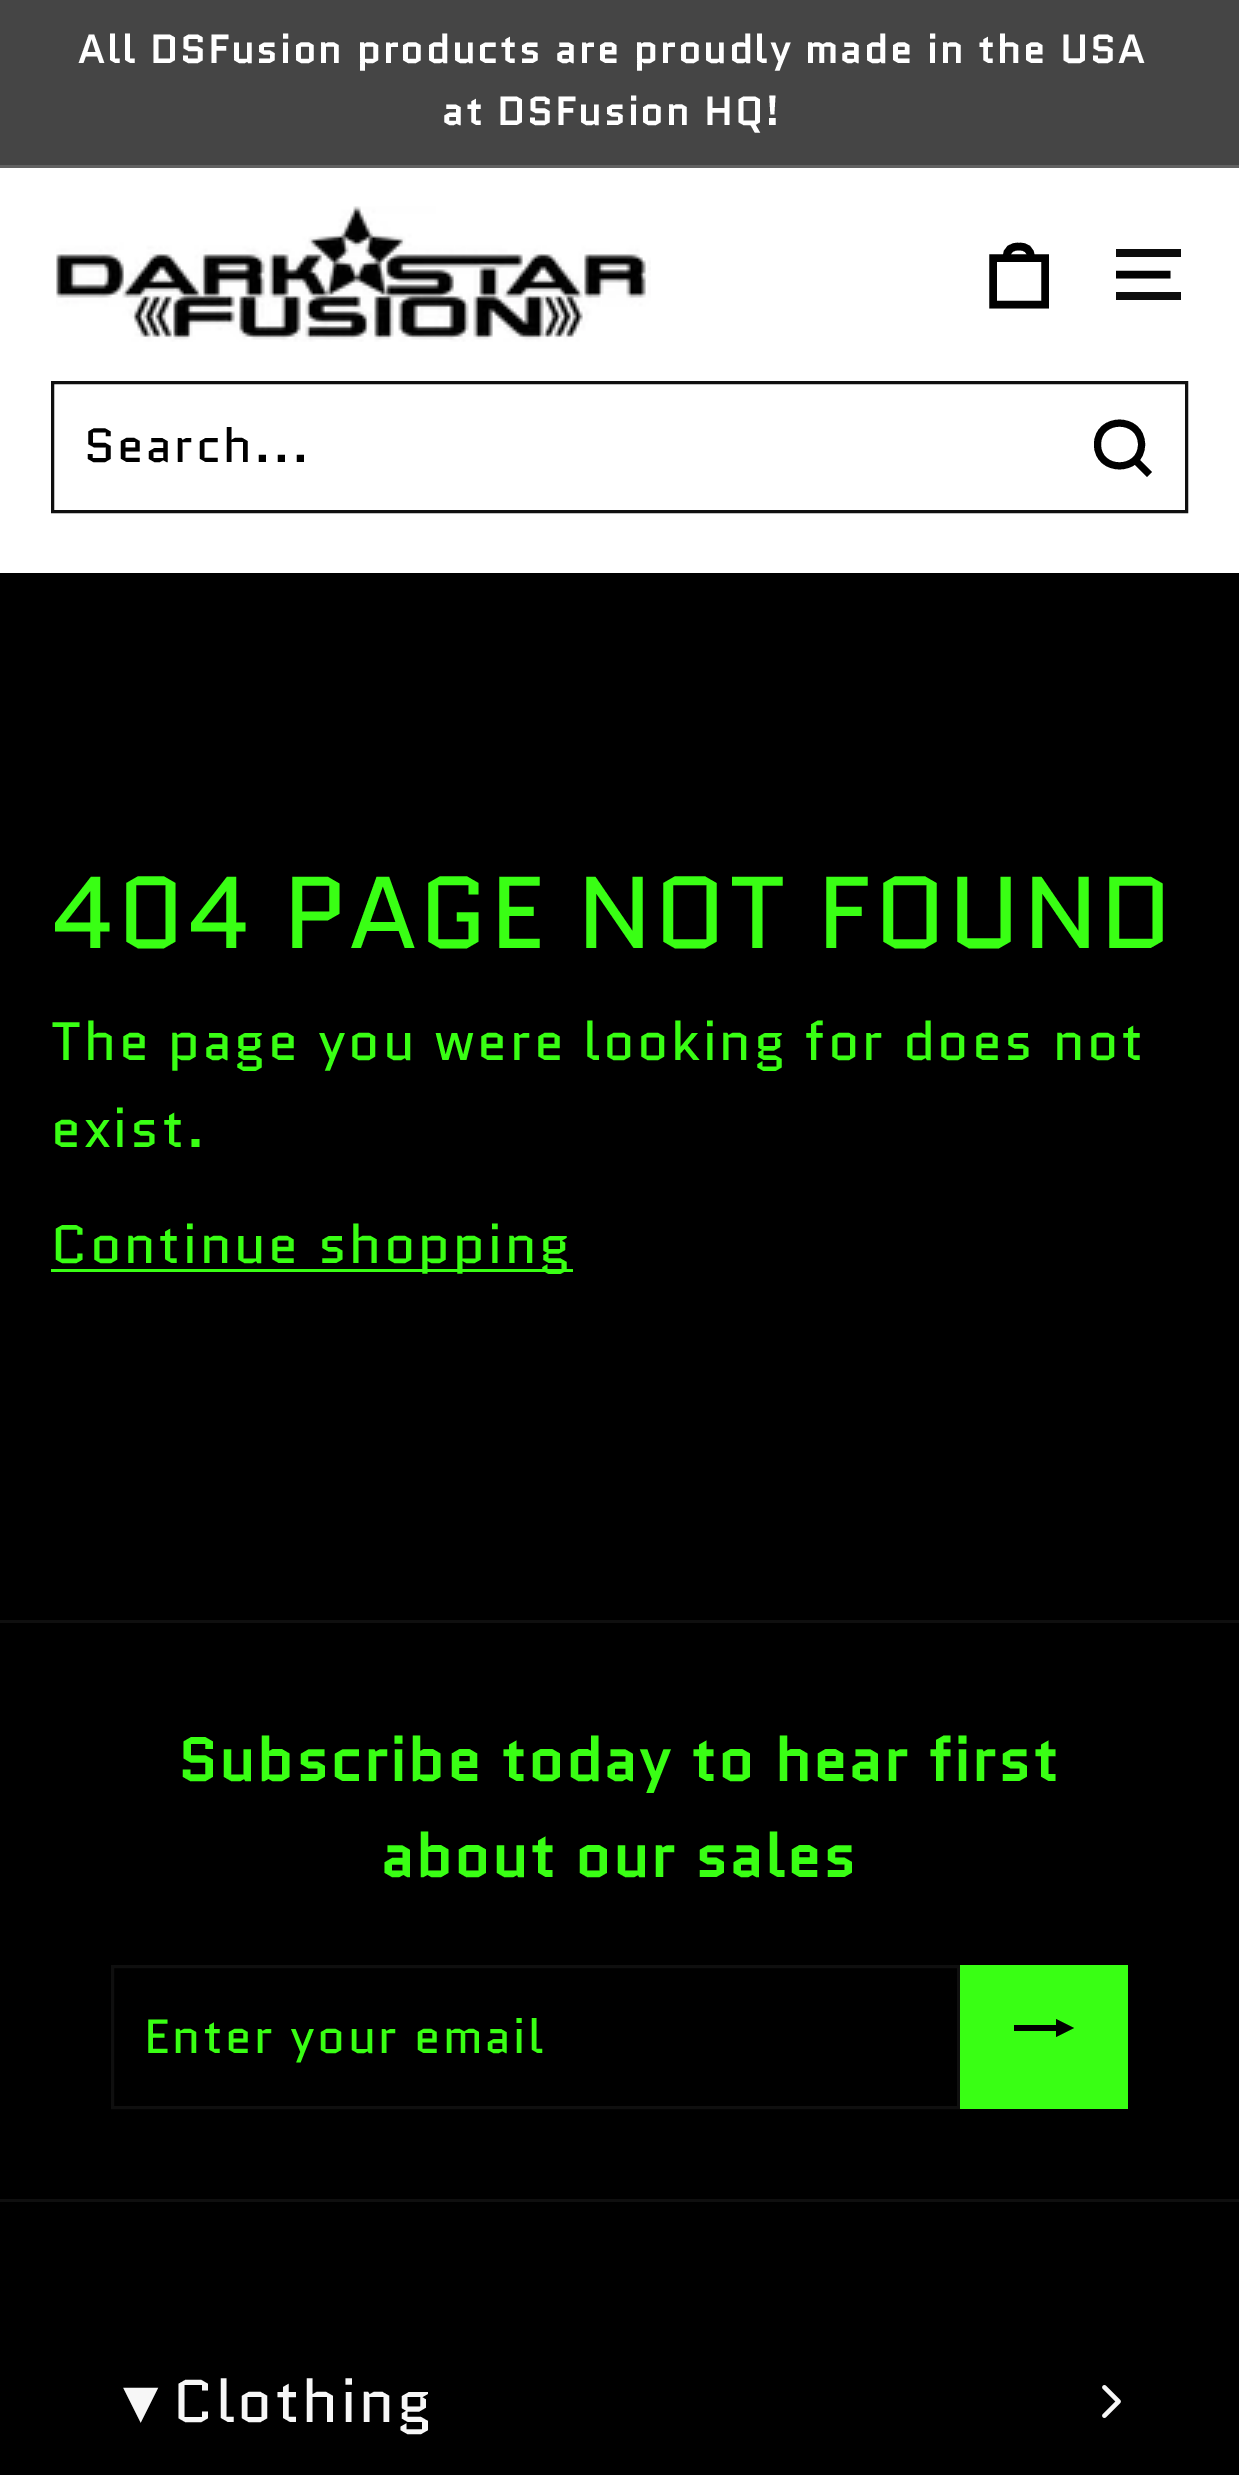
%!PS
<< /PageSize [1239 2475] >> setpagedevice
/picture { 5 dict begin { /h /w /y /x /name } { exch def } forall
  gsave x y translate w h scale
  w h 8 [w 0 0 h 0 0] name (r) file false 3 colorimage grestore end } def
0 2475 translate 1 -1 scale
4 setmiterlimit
0 setgray
0 0 1239 2475 rectfill
0.271 setgray
0 0 1239 165 rectfill
/Quantico-Bold [39 0 0 -39 0 0] selectfont
1 setgray
78 63 moveto 2.7 0 (All DSFusion products are proudly made in the USA) ashow
442 125 moveto 2.7 0 (at DSFusion HQ!) ashow
0.38 setgray
0 165 1239 3 rectfill
1 setgray
0 168 1239 405 rectfill
(img1.rgb) 56 206 595 136 picture
0 setgray
7.6 setlinewidth
newpath 1006.5 258 moveto 1006.5 249 1012 246.5 1019 246.5 curveto 1025.5 246.5 1031 249 1031 258 curveto stroke
newpath 993 258 moveto 1045 258 lineto 1045 304.5 lineto 993 304.5 lineto closepath stroke
0.051 setgray
1116 249 65 8 rectfill
0 setgray
newpath 1116 274.5 moveto 1170.5 274.5 lineto stroke
0.051 setgray
1116 292 65 8 rectfill
0.059 setgray
3 setlinewidth
52.5 382.5 1134 129 rectstroke
/Quantico-Regular [48 0 0 -48 0 0] selectfont
0 setgray
84 462 moveto 2.4 0 (Search...) ashow
7 setlinewidth
newpath 1141.5 444.5 moveto 1141.5 473 1097.5 473 1097.5 444.5 curveto 1097.5 416 1141.5 416 1141.5 444.5 curveto closepath 1149.5 474.5 moveto 1135 460 lineto stroke
/Quantico-Regular [102 0 0 -102 0 0] selectfont
0.224 1 0.078 setrgbcolor
51 948 moveto 2.5 0 (404 PAGE NOT FOUND) ashow
/Quantico-Regular [54 0 0 -54 0 0] selectfont
51 1060 moveto 2.7 0 (The page you were looking for does not) ashow
51 1147 moveto 2.7 0 (exist.) ashow
51 1269 522 3 rectfill
51 1263 moveto 2.7 0 (Continue shopping) ashow
0.059 setgray
0 1620 1239 3 rectfill
/Quantico-Bold [60 0 0 -60 0 0] selectfont
0.224 1 0.078 setrgbcolor
178 1781 moveto 2.7 0 (Subscribe today to hear first) ashow
381 1877 moveto 2.7 0 (about our sales) ashow
0.059 setgray
3 setlinewidth
112.5 1966.5 846 141 rectstroke
/Quantico-Regular [48 0 0 -48 0 0] selectfont
0.224 1 0.078 setrgbcolor
144 2053 moveto 2.4 0 (Enter your email) ashow
960 1965 168 144 rectfill
0 setgray
newpath 1014 2031 moveto 1014 2025 lineto 1056 2025 lineto 1056 2019 lineto 1074 2028 lineto 1056 2037 lineto 1056 2031 lineto closepath fill
0.059 setgray
0 2199 1239 3 rectfill
/LiberationSans-Regular [60 0 0 -60 0 0] selectfont
0.969 setgray
111 2422 moveto 2.7 0 (▼) ashow
/Quantico-Regular [60 0 0 -60 0 0] selectfont
173 2422 moveto 2.7 0 (Clothing) ashow
(img2.rgb) 1102 2385 19 33 picture
showpage
